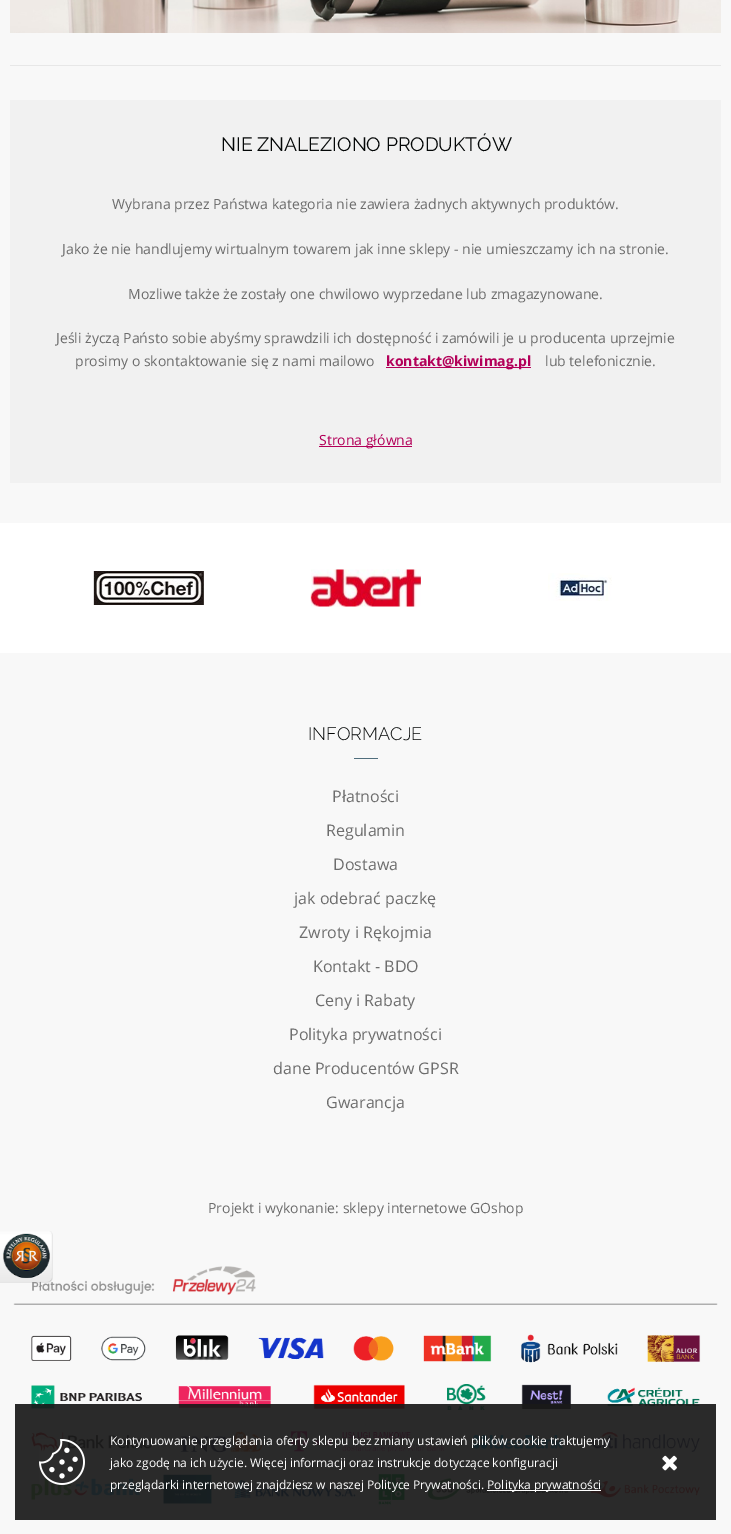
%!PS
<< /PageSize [731 1534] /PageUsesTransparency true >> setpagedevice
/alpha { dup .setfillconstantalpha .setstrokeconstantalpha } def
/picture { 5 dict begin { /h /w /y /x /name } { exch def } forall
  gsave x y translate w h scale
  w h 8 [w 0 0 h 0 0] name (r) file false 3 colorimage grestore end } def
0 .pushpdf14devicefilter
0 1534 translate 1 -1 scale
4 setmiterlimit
0.973 setgray
0 0 731 1534 rectfill
0.906 setgray
10 65 711 1 rectfill
(img1.rgb) 10 0 711 33 picture
0.945 setgray
10 100 711 383 rectfill
/Raleway-Regular [19.25 0 0 -19.25 0 0] selectfont
0.016 0.027 0.027 setrgbcolor
221 151 moveto (NIE ZNALEZIONO PRODUKTÓW) show
/OpenSans-Regular [14 0 0 -14 0 0] selectfont
0.427 setgray
112 209 moveto (Wybrana przez Państwa kategoria nie zawiera żadnych aktywnych produktów.) show
62 254 moveto (Jako że nie handlujemy wirtualnym towarem jak inne sklepy - nie umieszczamy ich na stronie.) show
128 299 moveto (Mozliwe także że zostały one chwilowo wyprzedane lub zmagazynowane.) show
56 343 moveto (Jeśli życzą Państo sobie abyśmy sprawdzili ich dostępność i zamówili je u producenta uprzejmie) show
75 366 moveto (prosimy o skontaktowanie się z nami mailowo) show
0.702 0 0.349 setrgbcolor
386 367 145 1 rectfill
/OpenSans-Bold [14 0 0 -14 0 0] selectfont
386 366 moveto (kontakt@kiwimag.pl) show
/OpenSans-Regular [14 0 0 -14 0 0] selectfont
0.427 setgray
545 366 moveto (lub telefonicznie.) show
0.702 0 0.349 setrgbcolor
319 446 93 1 rectfill
319 445 moveto (Strona główna) show
1 setgray
0 523 731 130 rectfill
(img2.rgb) 93 571 111 34 picture
(img3.rgb) 310 569 111 38 picture
(img4.rgb) 548 573 64 28 picture
/Raleway-Light [18 0 0 -18 0 0] selectfont
0.016 0.027 0.027 setrgbcolor
308 740 moveto (INFORMACJE) show
0.314 0.431 0.49 setrgbcolor
354 758 24 1 rectfill
/OpenSans-Regular [16 0 0 -16 0 0] selectfont
0.427 setgray
332 802 moveto (Płatności) show
326 836 moveto (Regulamin) show
333 870 moveto (Dostawa) show
294 904 moveto (jak odebrać paczkę) show
299 938 moveto (Zwroty i Rękojmia) show
313 972 moveto (Kontakt - BDO) show
315 1006 moveto (Ceny i Rabaty) show
289 1040 moveto (Polityka prywatności) show
273 1074 moveto (dane Producentów GPSR) show
326 1108 moveto (Gwarancja) show
/OpenSans-Regular [14 0 0 -14 0 0] selectfont
208 1213 moveto (Projekt i wykonanie: sklepy internetowe GOshop) show
(img5.rgb) 13 1266 705 239 picture
(img6.rgb) 0 1231 53 52 picture
0.92 alpha
0.098 setgray
15 1404 701 116 rectfill
1 alpha
(img7.rgb) 39 1439 46 46 picture
/OpenSans-Regular [12 0 0 -12 0 0] selectfont
1 setgray
110 1445 moveto (Kontynuowanie przeglądania oferty sklepu bez zmiany ustawień plików cookie traktujemy) show
110 1467 moveto (jako zgodę na ich użycie. Więcej informacji oraz instrukcje dotyczące konfiguracji) show
110 1489 moveto (przeglądarki internetowej znajdziesz w naszej Polityce Prywatności.) show
487 1490 114 1 rectfill
487 1489 moveto (Polityka prywatności) show
(img8.rgb) 662 1455 15 16 picture
.poppdf14devicefilter showpage
